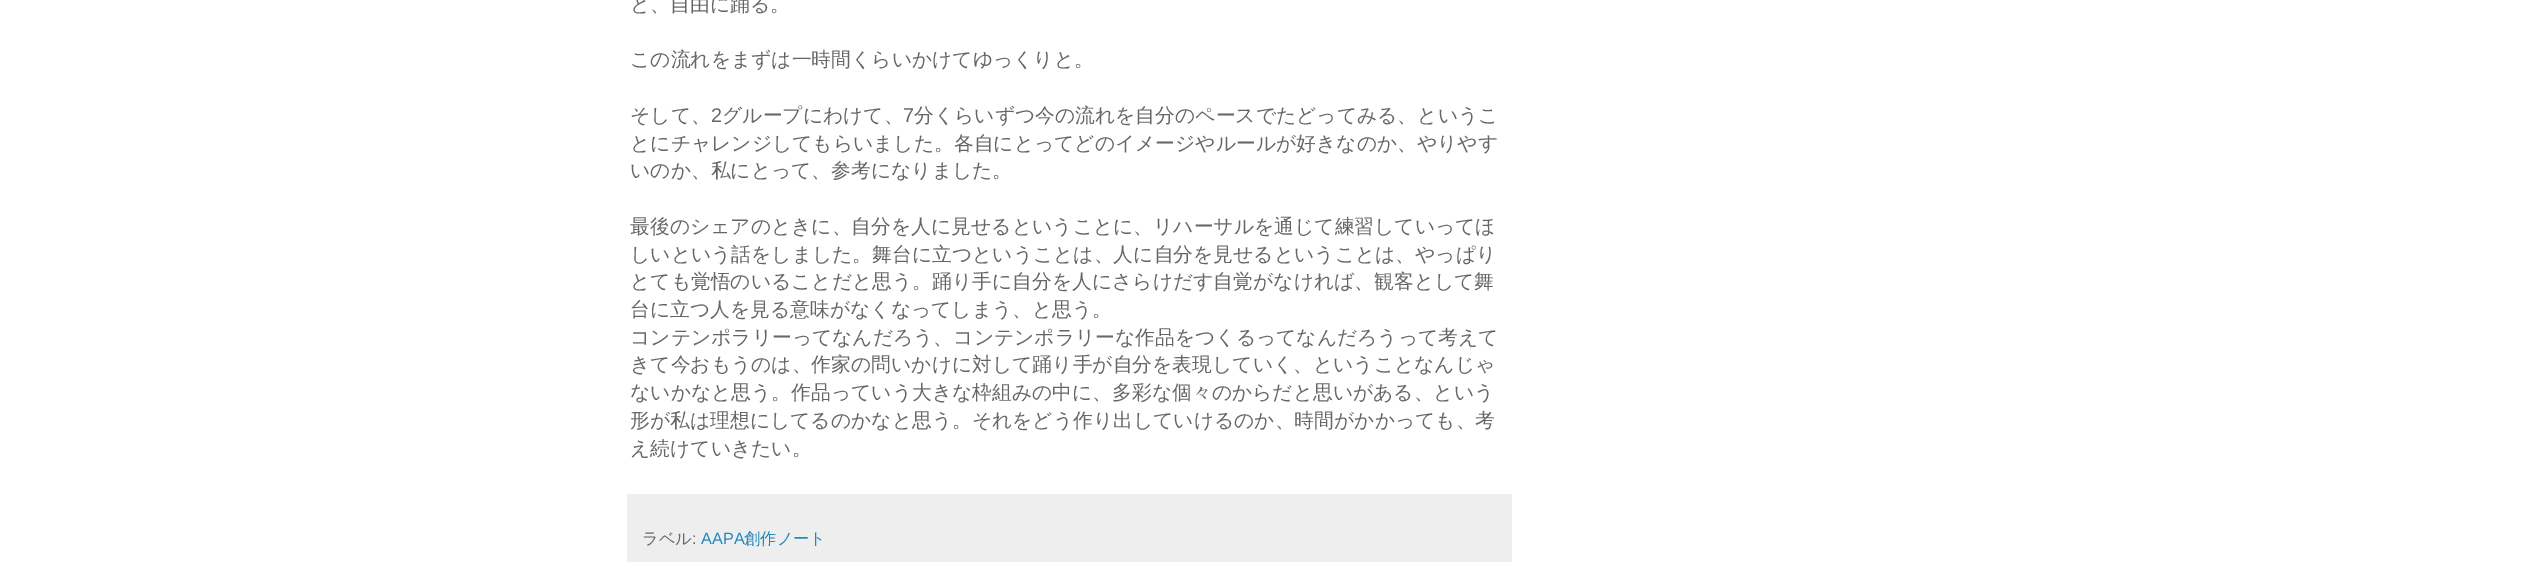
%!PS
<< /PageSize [2543 582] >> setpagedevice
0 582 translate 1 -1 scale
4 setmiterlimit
1 setgray
0 0 2543 582 rectfill
/WenQuanYiZenHei-Medium [19.8 0 0 -19.8 0 0] selectfont
0.4 setgray
630 11 moveto (と、自由に踊る。) show
630 66 moveto (この流れをまずは一時間くらいかけてゆっくりと。) show
630 122 moveto (そして、) show
/LiberationSans-Regular [19.8 0 0 -19.8 0 0] selectfont
711 122 moveto (2) show
/WenQuanYiZenHei-Medium [19.8 0 0 -19.8 0 0] selectfont
722 122 moveto (グループにわけて、) show
/LiberationSans-Regular [19.8 0 0 -19.8 0 0] selectfont
903 122 moveto (7) show
/WenQuanYiZenHei-Medium [19.8 0 0 -19.8 0 0] selectfont
914 122 moveto (分くらいずつ今の流れを自分のペースでたどってみる、というこ) show
630 150 moveto (とにチャレンジしてもらいました。各自にとってどのイメージやルールが好きなのか、やりやす) show
630 177 moveto (いのか、私にとって、参考になりました。) show
630 233 moveto (最後のシェアのときに、自分を人に見せるということに、リハーサルを通じて練習していってほ) show
630 261 moveto (しいという話をしました。舞台に立つということは、人に自分を見せるということは、やっぱり) show
630 288 moveto (とても覚悟のいることだと思う。踊り手に自分を人にさらけだす自覚がなければ、観客として舞) show
630 316 moveto (台に立つ人を見る意味がなくなってしまう、と思う。) show
630 344 moveto (コンテンポラリーってなんだろう、コンテンポラリーな作品をつくるってなんだろうって考えて) show
630 371 moveto (きて今おもうのは、作家の問いかけに対して踊り手が自分を表現していく、ということなんじゃ) show
630 399 moveto (ないかなと思う。作品っていう大きな枠組みの中に、多彩な個々のからだと思いがある、という) show
630 427 moveto (形が私は理想にしてるのかなと思う。それをどう作り出していけるのか、時間がかかっても、考) show
630 455 moveto (え続けていきたい。) show
0.933 setgray
627 494 885 68 rectfill
/WenQuanYiZenHei-Medium [16.25 0 0 -16.25 0 0] selectfont
0.4 setgray
642 544 moveto (ラベル) show
/LiberationSans-Regular [16.25 0 0 -16.25 0 0] selectfont
692 544 moveto (:) show
0.133 0.533 0.733 setrgbcolor
701 544 moveto (AAPA) show
/WenQuanYiZenHei-Medium [16.25 0 0 -16.25 0 0] selectfont
744 544 moveto (創作ノート) show
showpage
